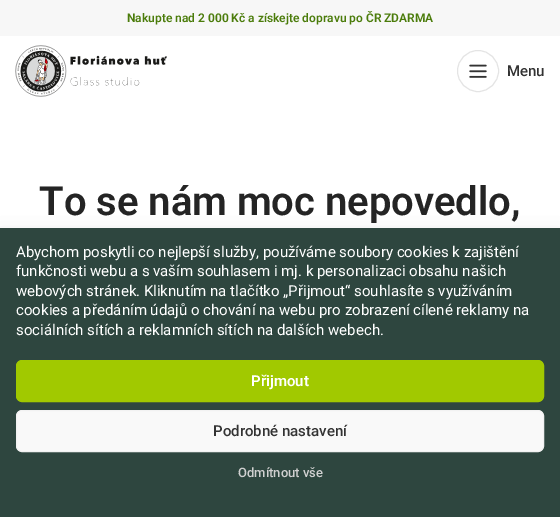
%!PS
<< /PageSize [560 517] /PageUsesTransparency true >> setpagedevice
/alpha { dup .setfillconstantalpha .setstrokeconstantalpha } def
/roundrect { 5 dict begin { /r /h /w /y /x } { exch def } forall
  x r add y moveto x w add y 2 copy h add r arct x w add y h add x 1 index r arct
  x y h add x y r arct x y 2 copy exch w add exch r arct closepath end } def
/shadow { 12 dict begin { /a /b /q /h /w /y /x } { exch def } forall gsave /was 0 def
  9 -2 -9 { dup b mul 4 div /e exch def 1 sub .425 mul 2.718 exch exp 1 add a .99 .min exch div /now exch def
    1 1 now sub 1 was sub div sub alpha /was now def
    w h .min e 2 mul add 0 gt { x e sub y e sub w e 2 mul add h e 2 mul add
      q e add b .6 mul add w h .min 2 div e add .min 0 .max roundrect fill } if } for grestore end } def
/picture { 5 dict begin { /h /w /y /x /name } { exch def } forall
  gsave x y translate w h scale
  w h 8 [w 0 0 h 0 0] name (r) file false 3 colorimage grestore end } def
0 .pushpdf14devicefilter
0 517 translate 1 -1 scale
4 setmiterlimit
1 setgray
0 0 560 517 rectfill
0.969 setgray
0 0 560 36 rectfill
/Roboto-SemiBold [12 0 0 -12 0 0] selectfont
0.294 0.486 0.043 setrgbcolor
127 22 moveto (Nakupte nad 2 000 Kč a získejte dopravu po ČR ZDARMA) show
(img1.rgb) 15 45 152 52 picture
0.894 setgray
newpath 478 71 20.5 0 360 arc closepath stroke
(img2.rgb) 469 64 18 14 picture
/Roboto-Medium [15 0 0 -15 0 0] selectfont
0.2 setgray
507 76 moveto (Menu) show
/Roboto-SemiBold [40 0 0 -40 0 0] selectfont
0.141 setgray
39 215 moveto (To se nám moc nepovedlo,) show
0 setgray
0 238 560 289 0 10 0.19 shadow
0.18 0.275 0.247 setrgbcolor
0 228 560 289 rectfill
/Roboto-Regular [15 0 0 -15 0 0] selectfont
1 setgray
16 257 moveto (Abychom poskytli co nejlepší služby, používáme soubory cookies k zajištění) show
16 276 moveto (funkčnosti webu a s vaším souhlasem i mj. k personalizaci obsahu našich) show
16 296 moveto (webových stránek. Kliknutím na tlačítko „Přijmout“ souhlasíte s využíváním) show
16 315 moveto (cookies a předáním údajů o chování na webu pro zobrazení cílené reklamy na) show
16 335 moveto (sociálních sítích a reklamních sítích na dalších webech.) show
0.631 0.788 0 setrgbcolor
16.5 360.5 527 41 5.5 roundrect gsave fill grestore
stroke
/Roboto-SemiBold [15 0 0 -15 0 0] selectfont
1 setgray
251 386 moveto (Přijmout) show
0.976 setgray
16.5 410.5 527 41 5.5 roundrect gsave fill grestore
0.949 setgray
stroke
/Roboto-Medium [15 0 0 -15 0 0] selectfont
0.2 setgray
213 436 moveto (Podrobné nastavení) show
/Roboto-Medium [13 0 0 -13 0 0] selectfont
0.816 setgray
238 477 moveto (Odmítnout vše) show
.poppdf14devicefilter showpage
